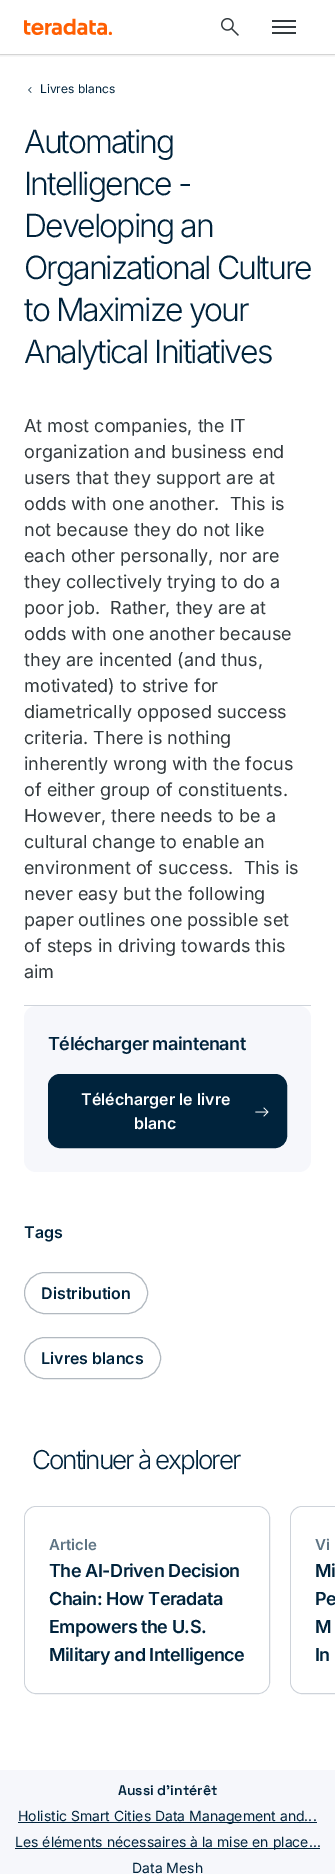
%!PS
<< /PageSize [335 1874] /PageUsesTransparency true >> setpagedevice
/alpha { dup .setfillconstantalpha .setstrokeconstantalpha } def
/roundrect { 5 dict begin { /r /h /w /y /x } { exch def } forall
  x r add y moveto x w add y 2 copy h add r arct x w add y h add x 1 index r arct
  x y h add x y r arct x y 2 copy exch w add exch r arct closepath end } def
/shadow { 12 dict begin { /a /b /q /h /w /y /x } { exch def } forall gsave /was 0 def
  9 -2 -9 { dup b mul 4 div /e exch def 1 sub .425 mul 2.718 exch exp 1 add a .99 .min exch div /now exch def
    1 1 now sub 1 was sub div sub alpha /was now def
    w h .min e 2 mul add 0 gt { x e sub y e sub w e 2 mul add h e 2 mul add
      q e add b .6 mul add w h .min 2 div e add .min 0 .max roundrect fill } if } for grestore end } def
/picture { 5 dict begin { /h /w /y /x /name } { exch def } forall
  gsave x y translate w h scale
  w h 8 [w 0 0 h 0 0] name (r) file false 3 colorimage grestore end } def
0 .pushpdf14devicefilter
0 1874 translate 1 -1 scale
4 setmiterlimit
1 setgray
0 0 335 1874 rectfill
0.898 setgray
0 54 335 1 rectfill
gsave
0 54 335 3 rectclip
0 setgray
0 1 335 54 0 2 0.12 shadow
grestore
(img1.rgb) 24 18 88 17 picture
(img2.rgb) 221 18 18 18 picture
0.2 0.227 0.243 setrgbcolor
272 20 24 2 rectfill
272 26 24 2 rectfill
272 32 24 2 rectfill
(img3.rgb) 28 87 4 6 picture
/Inter-Regular [12 0 0 -12 0 0] selectfont
0 0.137 0.235 setrgbcolor
40 93 moveto (Livres blancs) show
0.808 0.827 0.855 setrgbcolor
24 1005 287 1 rectfill
/Inter-Light [32 0 0 -32 0 0] selectfont
0 0.137 0.235 setrgbcolor
24 153 moveto -2 0 (Automating) ashow
24 195 moveto -2 0 (Intelligence -) ashow
24 237 moveto -2 0 (Developing an) ashow
24 279 moveto -2 0 (Organizational Culture) ashow
24 321 moveto -2 0 (to Maximize your) ashow
24 363 moveto -2 0 (Analytical Initiatives) ashow
/Inter-Regular [18 0 0 -18 0 0] selectfont
0.2 0.227 0.243 setrgbcolor
24 432 moveto (At most companies, the IT) show
24 458 moveto (organization and business end) show
24 484 moveto (users that they support are at) show
24 510 moveto (odds with one another.  This is) show
24 536 moveto (not because they do not like) show
24 562 moveto (each other personally, nor are) show
24 588 moveto (they collectively trying to do a) show
24 614 moveto (poor job.  Rather, they are at) show
24 640 moveto (odds with one another because) show
24 666 moveto (they are incented \(and thus,) show
24 692 moveto (motivated\) to strive for) show
24 718 moveto (diametrically opposed success) show
24 744 moveto (criteria. There is nothing) show
24 770 moveto (inherently wrong with the focus) show
24 796 moveto (of either group of constituents.) show
24 822 moveto (However, there needs to be a) show
24 848 moveto (cultural change to enable an) show
24 874 moveto (environment of success.  This is) show
24 900 moveto (never easy but the following) show
24 926 moveto (paper outlines one possible set) show
24 952 moveto (of steps in driving towards this) show
24 978 moveto (aim) show
0.965 0.969 0.984 setrgbcolor
24 1006 287 166 12 roundrect fill
/Inter-SemiBold [18 0 0 -18 0 0] selectfont
0 0.137 0.235 setrgbcolor
48 1050 moveto -0.5 0 (Télécharger maintenant) ashow
48.5 1074.5 238 73 11.5 roundrect gsave fill grestore
stroke
/Inter-SemiBold [16 0 0 -16 0 0] selectfont
1 setgray
81 1105 moveto (Télécharger le livre) show
(img4.rgb) 255 1107 14 10 picture
134 1129 moveto (blanc) show
0 0.137 0.235 setrgbcolor
24 1238 moveto (Tags) show
0.698 0.725 0.753 setrgbcolor
24.5 1272.5 123 41 20.5 roundrect stroke
0 0.137 0.235 setrgbcolor
41 1299 moveto (Distribution) show
0.698 0.725 0.753 setrgbcolor
24.5 1337.5 136 41 20.5 roundrect stroke
0 0.137 0.235 setrgbcolor
41 1364 moveto (Livres blancs) show
/Inter-Light [26 0 0 -26 0 0] selectfont
32 1469 moveto -2 0 (Continuer à explorer) ashow
0.808 0.827 0.855 setrgbcolor
24.5 1506.5 245 187 11.5 roundrect stroke
1 setgray
25 1507 244 186 12 roundrect fill
/Inter-SemiBold [15 0 0 -15 0 0] selectfont
0.369 0.455 0.518 setrgbcolor
49 1550 moveto (Article) show
/Inter-SemiBold [18 0 0 -18 0 0] selectfont
0 0.137 0.235 setrgbcolor
49 1577 moveto -0.5 0 (The AI-Driven Decision) ashow
49 1605 moveto -0.5 0 (Chain: How Teradata) ashow
49 1633 moveto -0.5 0 (Empowers the U.S.) ashow
49 1661 moveto -0.5 0 (Military and Intelligence) ashow
0.808 0.827 0.855 setrgbcolor
290.5 1506.5 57 187 11.5 roundrect stroke
1 setgray
newpath 303 1507 moveto 335 1507 lineto 335 1693 lineto 303 1693 lineto 296.5 1693 291 1687.5 291 1681 curveto 291 1519 lineto 291 1512.5 296.5 1507 303 1507 curveto closepath fill
/Inter-SemiBold [15 0 0 -15 0 0] selectfont
0.369 0.455 0.518 setrgbcolor
315 1550 moveto (Vi) show
/Inter-SemiBold [18 0 0 -18 0 0] selectfont
0 0.137 0.235 setrgbcolor
315 1577 moveto -0.5 0 (Mi) ashow
315 1605 moveto -0.5 0 (Pe) ashow
315 1633 moveto -0.5 0 (M) ashow
315 1661 moveto -0.5 0 (In) ashow
0.965 0.969 0.984 setrgbcolor
0 1770 335 104 rectfill
/SpaceGrotesk-SemiBold [14 0 0 -14 0 0] selectfont
0 0.137 0.235 setrgbcolor
118 1795 moveto (Aussi d’intérêt) show
18 1822 299 1 rectfill
/Inter-Regular [14 0 0 -14 0 0] selectfont
18 1821 moveto (Holistic Smart Cities Data Management and...) show
15 1848 305 1 rectfill
15 1847 moveto (Les éléments nécessaires à la mise en place...) show
132 1873 moveto (Data Mesh) show
.poppdf14devicefilter showpage
